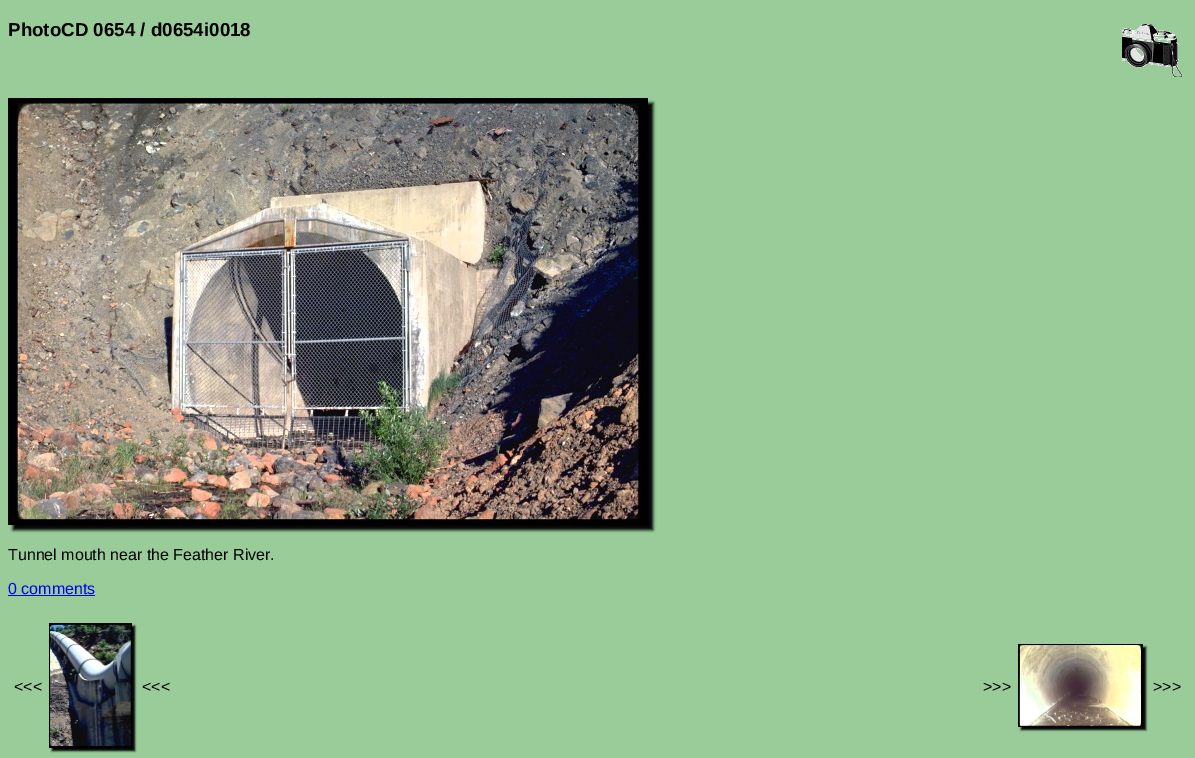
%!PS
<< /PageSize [1195 758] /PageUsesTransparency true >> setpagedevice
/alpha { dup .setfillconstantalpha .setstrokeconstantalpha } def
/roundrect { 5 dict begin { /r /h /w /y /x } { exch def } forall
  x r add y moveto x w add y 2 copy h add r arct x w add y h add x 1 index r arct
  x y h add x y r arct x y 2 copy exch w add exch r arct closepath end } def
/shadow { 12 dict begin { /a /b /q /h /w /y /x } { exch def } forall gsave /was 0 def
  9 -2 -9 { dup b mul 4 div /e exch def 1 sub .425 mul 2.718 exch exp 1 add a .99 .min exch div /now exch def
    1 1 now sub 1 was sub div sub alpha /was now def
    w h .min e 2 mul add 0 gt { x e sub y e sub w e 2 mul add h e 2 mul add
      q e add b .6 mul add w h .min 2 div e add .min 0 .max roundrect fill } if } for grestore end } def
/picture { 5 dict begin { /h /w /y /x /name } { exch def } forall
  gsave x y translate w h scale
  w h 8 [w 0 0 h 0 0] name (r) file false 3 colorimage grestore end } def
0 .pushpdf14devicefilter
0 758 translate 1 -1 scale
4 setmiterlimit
0.6 0.8 0.6 setrgbcolor
0 0 1195 758 rectfill
/LiberationSans-Bold [18.75 0 0 -18.75 0 0] selectfont
0 setgray
8 36 moveto (PhotoCD 0654 / d0654i0018) show
(img1.rgb) 1122 24 60 53 picture
13 103 640 427 0 1.5 1 shadow
(img2.rgb) 8 98 640 427 picture
/LiberationSans-Regular [16 0 0 -16 0 0] selectfont
8 560 moveto (Tunnel mouth near the Feather River.) show
0 0 0.933 setrgbcolor
8 594 moveto (0 comments) show
8 595 87 1 rectfill
0 setgray
14 692 moveto (<<<) show
52 626 83 125 0 1 1 shadow
(img3.rgb) 49 623 83 125 picture
142 692 moveto (<<<) show
983 692 moveto (>>>) show
1021 647 125 83 0 1 1 shadow
(img4.rgb) 1018 644 125 83 picture
1153 692 moveto (>>>) show
.poppdf14devicefilter showpage
